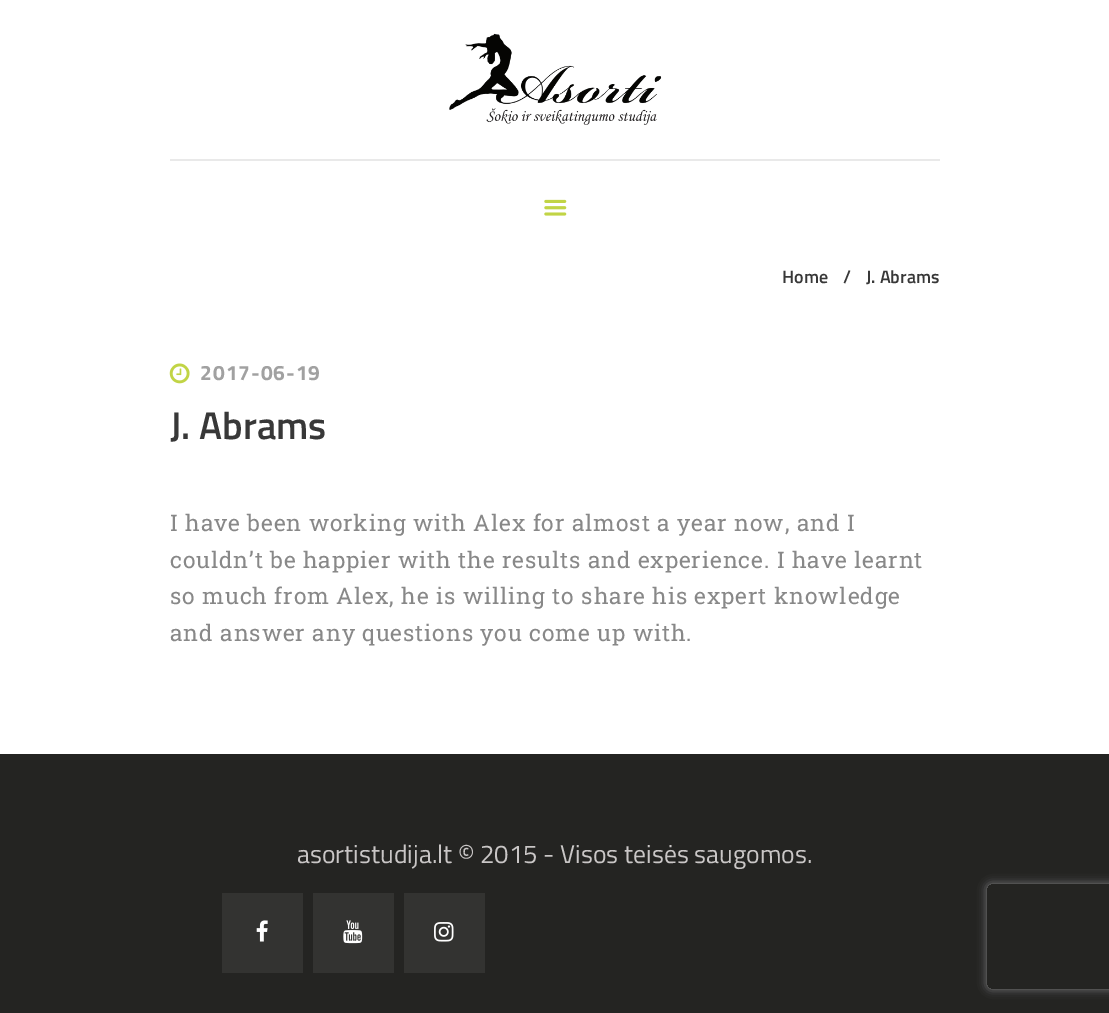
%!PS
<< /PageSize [1109 1013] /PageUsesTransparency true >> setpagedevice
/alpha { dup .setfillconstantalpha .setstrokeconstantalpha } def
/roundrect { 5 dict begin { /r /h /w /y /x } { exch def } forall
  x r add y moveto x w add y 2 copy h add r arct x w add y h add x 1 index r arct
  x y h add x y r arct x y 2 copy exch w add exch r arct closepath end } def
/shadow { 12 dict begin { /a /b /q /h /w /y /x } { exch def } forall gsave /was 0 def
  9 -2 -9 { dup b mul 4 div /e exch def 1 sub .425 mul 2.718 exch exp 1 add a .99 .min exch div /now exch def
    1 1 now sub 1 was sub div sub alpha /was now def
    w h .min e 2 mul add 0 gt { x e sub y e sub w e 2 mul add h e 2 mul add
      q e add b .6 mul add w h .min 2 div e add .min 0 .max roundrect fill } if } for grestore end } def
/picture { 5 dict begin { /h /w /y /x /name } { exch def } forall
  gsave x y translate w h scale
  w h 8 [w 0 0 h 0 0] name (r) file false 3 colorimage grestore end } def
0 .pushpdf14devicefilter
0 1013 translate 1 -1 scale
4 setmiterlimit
1 setgray
0 0 1109 1013 rectfill
(img1.rgb) 449 33 213 92 picture
0.914 setgray
170 159 770 2 rectfill
(img2.rgb) 544 199 23 17 picture
/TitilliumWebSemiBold-SemiBold [18 0 0 -18 0 0] selectfont
0.22 setgray
782 283 moveto (Home) show
843 283 moveto (/) show
866 283 moveto (J. Abrams) show
(img3.rgb) 169 363 21 21 picture
/TitilliumWeb-Bold [21 0 0 -21 0 0] selectfont
0.631 setgray
200 380 moveto 1 0 (2017-06-19) ashow
/TitilliumWebSemiBold-SemiBold [38.5 0 0 -38.5 0 0] selectfont
0.22 setgray
170 439 moveto (J. Abrams) show
/RobotoSlab-Regular [22.75 0 0 -22.75 0 0] selectfont
0.533 setgray
170 531 moveto 0.88 0 (I have been working with Alex for almost a year now, and I) ashow
170 568 moveto 0.88 0 (couldn’t be happier with the results and experience. I have learnt) ashow
170 604 moveto 0.88 0 (so much from Alex, he is willing to share his expert knowledge) ashow
170 641 moveto 0.88 0 (and answer any questions you come up with.) ashow
0.141 0.141 0.133 setrgbcolor
0 754 1109 259 rectfill
/TitilliumWeb-Regular [25.75 0 0 -25.75 0 0] selectfont
0.788 0.776 0.776 setrgbcolor
297 863 moveto (asortistudija.lt © 2015 - Visos teisės saugomos.) show
0.2 0.2 0.192 setrgbcolor
222 893 81 80 rectfill
(img4.rgb) 256 920 12 22 picture
313 893 81 80 rectfill
(img5.rgb) 343 920 20 24 picture
404 893 81 80 rectfill
(img6.rgb) 434 922 20 20 picture
gsave
newpath 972 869 moveto 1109 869 lineto 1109 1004 lineto 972 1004 lineto closepath 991 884 moveto 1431 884 lineto 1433 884 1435 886 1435 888 curveto 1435 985 lineto 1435 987 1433 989 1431 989 curveto 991 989 lineto 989 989 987 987 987 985 curveto 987 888 lineto 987 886 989 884 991 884 curveto closepath eoclip newpath
0.502 setgray
987 884 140 105 4 4.5 1 shadow
grestore
.poppdf14devicefilter showpage
